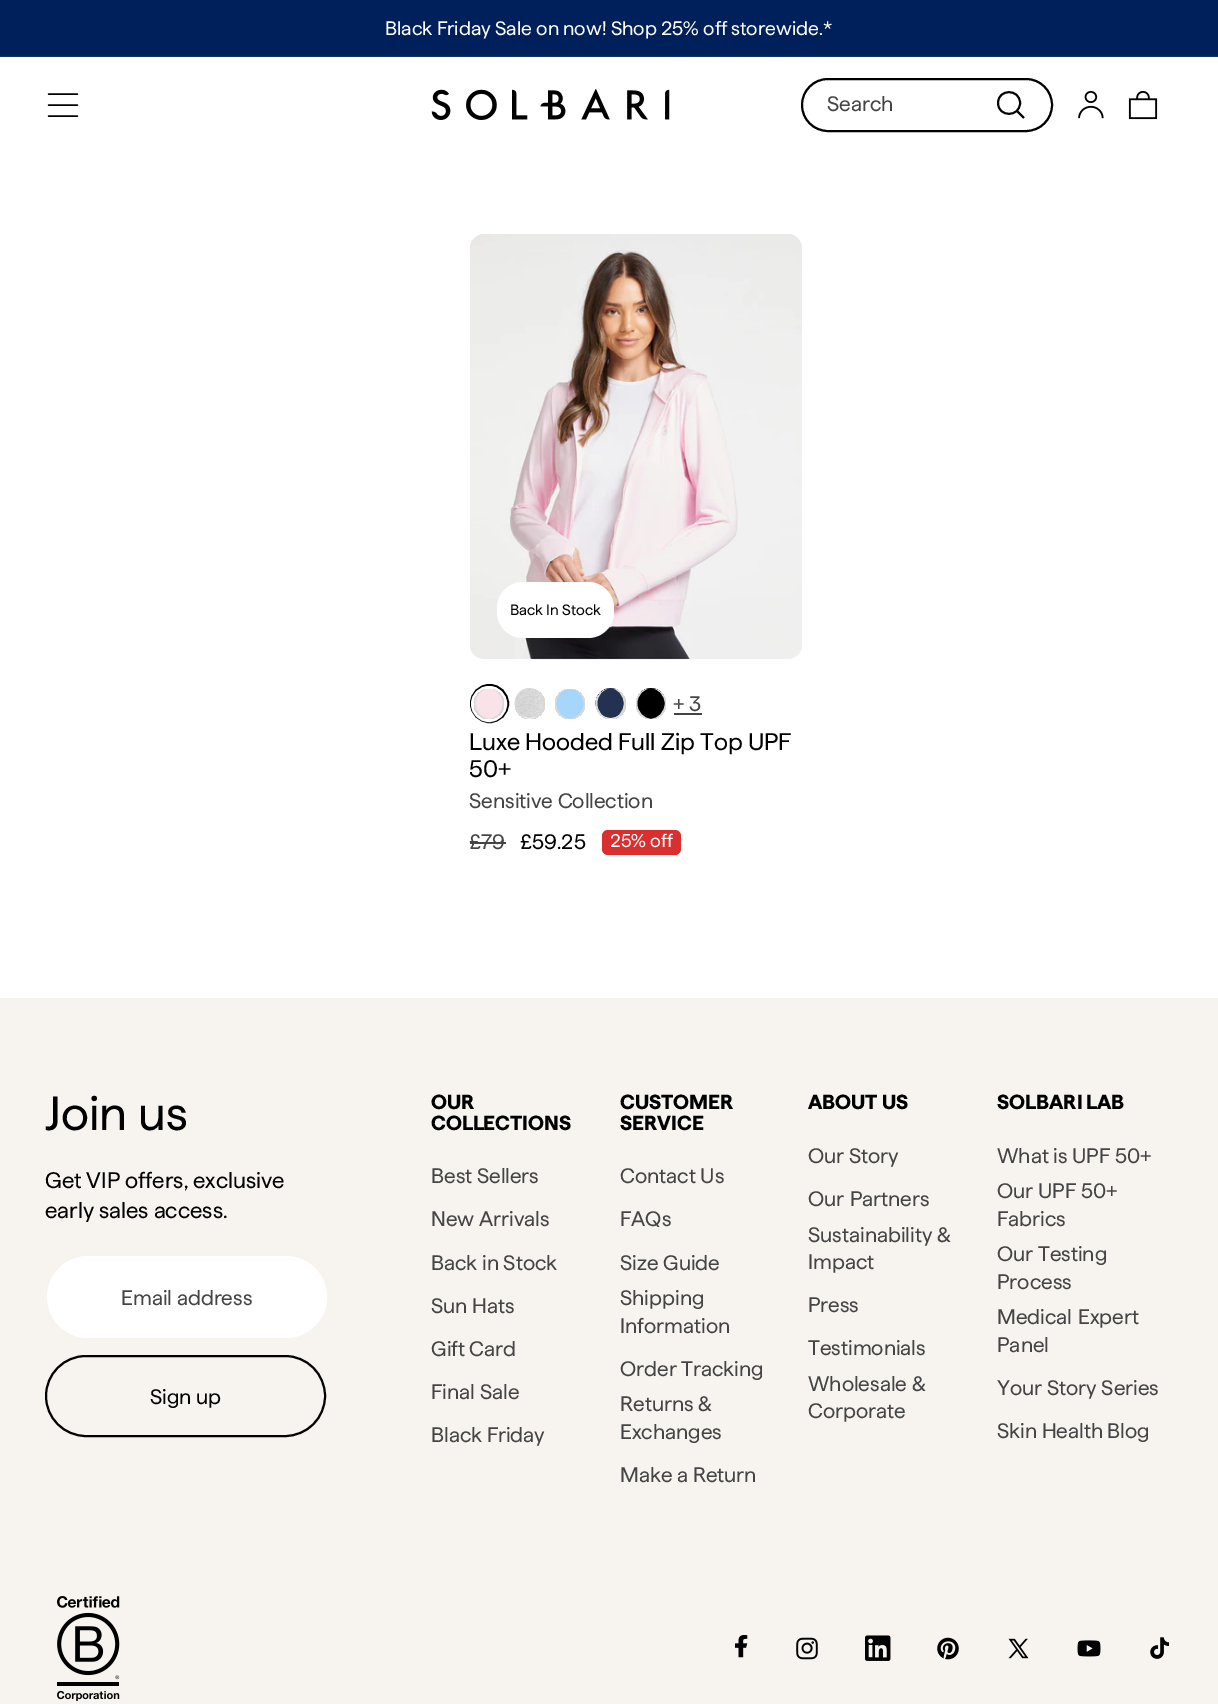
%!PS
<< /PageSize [1218 1704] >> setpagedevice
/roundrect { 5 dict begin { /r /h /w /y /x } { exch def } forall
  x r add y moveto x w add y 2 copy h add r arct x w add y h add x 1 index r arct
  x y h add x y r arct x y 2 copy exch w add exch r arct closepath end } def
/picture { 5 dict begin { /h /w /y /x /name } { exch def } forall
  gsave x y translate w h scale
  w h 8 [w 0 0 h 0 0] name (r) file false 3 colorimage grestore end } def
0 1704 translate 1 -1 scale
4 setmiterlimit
1 setgray
0 0 1218 1704 rectfill
0 0.125 0.357 setrgbcolor
0 0 1218 56 rectfill
0.078 0.196 0.408 setrgbcolor
0 56 1218 1 rectfill
/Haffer-Regular [19.5 0 0 -19.5 0 0] selectfont
1 setgray
385 35 moveto (Black Friday Sale on now! Shop 25% off storewide.*) show
0 setgray
1.4 setlinewidth
1 setlinecap
newpath 48.5 94 moveto 77.5 94 lineto 48.5 105 moveto 77.5 105 lineto 48.5 116 moveto 77.5 116 lineto stroke
(img1.rgb) 431 89 239 31 picture
2 setlinewidth
0 setlinecap
802 79 250 52 26 roundrect stroke
/Haffer-Regular [21 0 0 -21 0 0] selectfont
0.267 setgray
827 111 moveto (Search) show
0 setgray
1.9 setlinewidth
newpath 1016.5 110.5 moveto 1024 118 lineto 1020 103 moveto 1020 88.5 998 88.5 998 103 curveto 998 117.5 1020 117.5 1020 103 curveto closepath stroke
(img2.rgb) 1078 90 26 29 picture
(img3.rgb) 1128 91 30 29 picture
(img4.rgb) 470 234 332 426 picture
1 setgray
497 582 117 56 26 roundrect fill
/Haffer-Regular [15 0 0 -15 0 0] selectfont
0 setgray
510 615 moveto (Back In Stock) show
2 setlinewidth
newpath 489.5 703.5 18.5 0 360 arc closepath stroke
1 setgray
3 setlinewidth
newpath 489 704 16.5 0 360 arc closepath stroke
0.976 0.89 0.91 setrgbcolor
newpath 489 689 moveto 480.5 689 474 695.5 474 704 curveto 474 712.5 480.5 719 489 719 curveto 497.5 719 504 712.5 504 704 curveto 504 695.5 497.5 689 489 689 curveto closepath fill
gsave
474 689 30 30 15 roundrect clip newpath
0.851 setgray
4.5 setlinewidth
newpath 489 686 moveto 497.5 686 505 694 505 703.5 curveto 505 713 497.5 721 489 721 curveto 480.5 721 473 713 473 703.5 curveto 473 694 480.5 686 489 686 curveto closepath stroke
grestore
(img5.rgb) 514 688 31 30 picture
gsave
515 689 30 30 15 roundrect clip newpath
0.851 setgray
4.5 setlinewidth
newpath 529.5 686 moveto 538 686 545 694 545 703.5 curveto 545 713 538 721 529.5 721 curveto 521 721 514 713 514 703.5 curveto 514 694 521 686 529.5 686 curveto closepath stroke
grestore
0.655 0.839 0.988 setrgbcolor
newpath 570 689 moveto 561.5 689 555 695.5 555 704 curveto 555 712.5 561.5 719 570 719 curveto 578.5 719 585 712.5 585 704 curveto 585 695.5 578.5 689 570 689 curveto closepath fill
gsave
555 689 30 30 15 roundrect clip newpath
0.851 setgray
4.5 setlinewidth
newpath 570 686 moveto 578.5 686 586 694 586 703.5 curveto 586 713 578.5 721 570 721 curveto 561.5 721 554 713 554 703.5 curveto 554 694 561.5 686 570 686 curveto closepath stroke
grestore
(img6.rgb) 595 688 31 30 picture
gsave
596 689 30 30 15 roundrect clip newpath
0.851 setgray
4.5 setlinewidth
newpath 610.5 686 moveto 619 686 626 694 626 703.5 curveto 626 713 619 721 610.5 721 curveto 602 721 595 713 595 703.5 curveto 595 694 602 686 610.5 686 curveto closepath stroke
grestore
0 setgray
newpath 651 689 moveto 642.5 689 636 695.5 636 704 curveto 636 712.5 642.5 719 651 719 curveto 659.5 719 666 712.5 666 704 curveto 666 695.5 659.5 689 651 689 curveto closepath fill
(img7.rgb) 636 688 30 24 picture
gsave
636 689 30 30 15 roundrect clip newpath
0.851 setgray
4.5 setlinewidth
newpath 651 686 moveto 659.5 686 667 694 667 703.5 curveto 667 713 659.5 721 651 721 curveto 642.5 721 635 713 635 703.5 curveto 635 694 642.5 686 651 686 curveto closepath stroke
grestore
/Haffer-Regular [21 0 0 -21 0 0] selectfont
0.267 setgray
673 711 moveto (+ 3) show
674 713 28 2 rectfill
/Haffer-Regular [24 0 0 -24 0 0] selectfont
0 setgray
469 750 moveto (Luxe Hooded Full Zip Top UPF) show
469 777 moveto (50+) show
/Haffer-Regular [21 0 0 -21 0 0] selectfont
0.267 setgray
469 808 moveto (Sensitive Collection) show
469 849 moveto (£79) show
470 842 36 2 rectfill
0 setgray
520 849 moveto (£59.25) show
0.855 0.184 0.184 setrgbcolor
602 830 79 25 6 roundrect fill
/Haffer-Regular [18.5 0 0 -18.5 0 0] selectfont
1 setgray
610 847 moveto (25% off) show
0.969 0.957 0.937 setrgbcolor
0 998 1218 706 rectfill
/Haffer-Regular [48 0 0 -48 0 0] selectfont
0 setgray
45 1130 moveto (Join us) show
/Haffer-Regular [22.5 0 0 -22.5 0 0] selectfont
45 1188 moveto (Get VIP offers, exclusive) show
45 1218 moveto (early sales access.) show
1 setgray
47 1256 280 82 41 roundrect fill
/Haffer-Regular [21 0 0 -21 0 0] selectfont
0.267 setgray
121 1305 moveto (Email address) show
0 setgray
2 setlinewidth
46 1356 279 80 40 roundrect stroke
150 1404 moveto (Sign up) show
/Haffer-Bold [20.5 0 0 -20.5 0 0] selectfont
431 1109 moveto (OUR) show
431 1130 moveto (COLLECTIONS) show
/Haffer-Regular [21 0 0 -21 0 0] selectfont
0.267 setgray
431 1183 moveto (Best Sellers) show
431 1226 moveto (New Arrivals) show
431 1270 moveto (Back in Stock) show
431 1313 moveto (Sun Hats) show
431 1356 moveto (Gift Card) show
431 1399 moveto (Final Sale) show
431 1442 moveto (Black Friday) show
/Haffer-Bold [20.5 0 0 -20.5 0 0] selectfont
0 setgray
620 1109 moveto (CUSTOMER) show
620 1130 moveto (SERVICE) show
/Haffer-Regular [21 0 0 -21 0 0] selectfont
0.267 setgray
620 1183 moveto (Contact Us) show
620 1226 moveto (FAQs) show
620 1270 moveto (Size Guide) show
620 1305 moveto (Shipping) show
620 1333 moveto (Information) show
620 1376 moveto (Order Tracking) show
620 1411 moveto (Returns &) show
620 1439 moveto (Exchanges) show
620 1482 moveto (Make a Return) show
/Haffer-Bold [20.5 0 0 -20.5 0 0] selectfont
0 setgray
808 1109 moveto (ABOUT US) show
/Haffer-Regular [21 0 0 -21 0 0] selectfont
0.267 setgray
808 1163 moveto (Our Story) show
808 1206 moveto 1 0 32 (Our Partners) widthshow
808 1242 moveto (Sustainability &) show
808 1269 moveto (Impact) show
808 1312 moveto (Press) show
808 1355 moveto (Testimonials) show
808 1391 moveto (Wholesale &) show
808 1418 moveto (Corporate) show
/Haffer-Bold [20.5 0 0 -20.5 0 0] selectfont
0 setgray
997 1109 moveto (SOLBARI LAB) show
/Haffer-Regular [21 0 0 -21 0 0] selectfont
0.267 setgray
997 1163 moveto (What is UPF 50+) show
997 1198 moveto (Our UPF 50+) show
997 1226 moveto (Fabrics) show
997 1261 moveto (Our Testing) show
997 1289 moveto (Process) show
997 1324 moveto 1 0 32 (Medical Expert) widthshow
997 1352 moveto (Panel) show
997 1395 moveto (Your Story Series) show
997 1438 moveto (Skin Health Blog) show
(img8.rgb) 57 1596 63 105 picture
(img9.rgb) 735 1635 13 23 picture
(img10.rgb) 796 1637 22 23 picture
(img11.rgb) 865 1635 26 26 picture
(img12.rgb) 937 1637 22 23 picture
(img13.rgb) 1008 1638 21 21 picture
(img14.rgb) 1077 1640 24 17 picture
(img15.rgb) 1150 1637 19 22 picture
showpage
